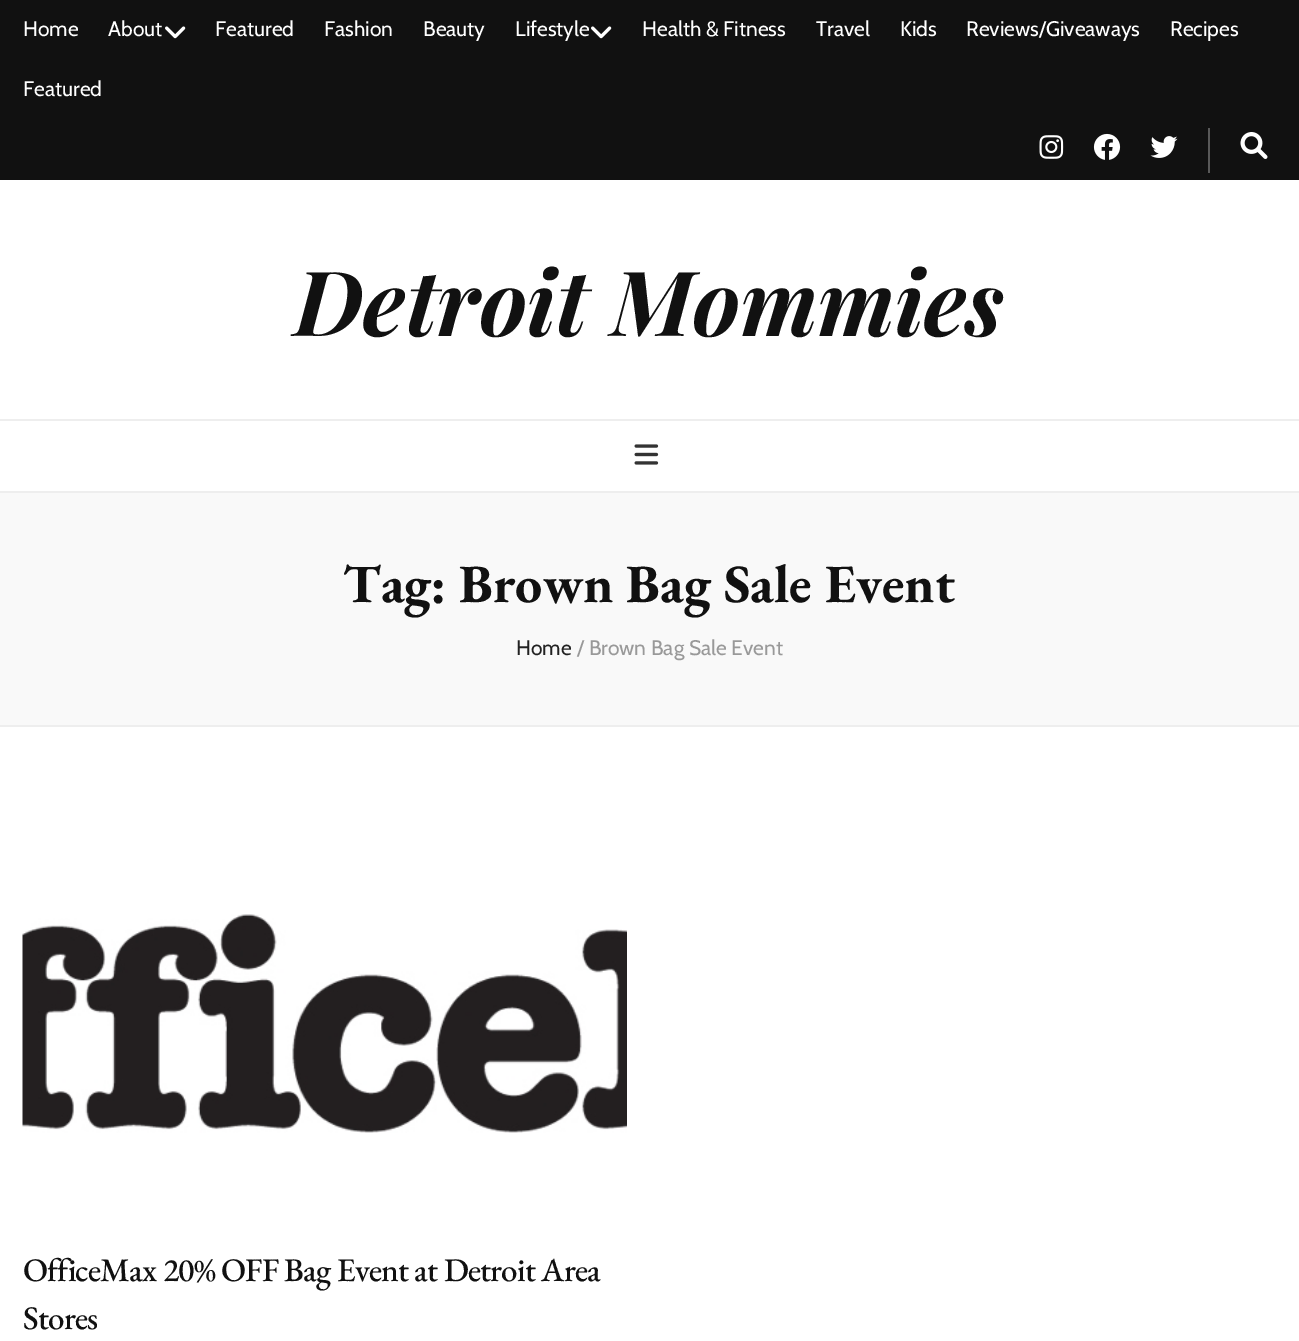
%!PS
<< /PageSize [1299 1341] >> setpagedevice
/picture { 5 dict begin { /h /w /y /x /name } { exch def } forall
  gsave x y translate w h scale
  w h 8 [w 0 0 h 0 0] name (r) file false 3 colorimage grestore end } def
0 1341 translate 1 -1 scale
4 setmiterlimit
1 setgray
0 0 1299 1341 rectfill
0.067 setgray
0 0 1299 180 rectfill
/Cabin-Regular [21 0 0 -21 0 0] selectfont
1 setgray
23 36 moveto (Home) show
108 36 moveto (About) show
(img1.rgb) 165 26 21 13 picture
215 36 moveto (Featured) show
324 36 moveto (Fashion) show
423 36 moveto (Beauty) show
515 36 moveto (Lifestyle) show
(img1.rgb) 591 26 21 13 picture
642 36 moveto (Health & Fitness) show
816 36 moveto (Travel) show
900 36 moveto (Kids) show
966 36 moveto (Reviews/Giveaways) show
1170 36 moveto (Recipes) show
23 96 moveto (Featured) show
0.349 setgray
1208 128 2 45 rectfill
(img2.rgb) 1039 135 25 24 picture
(img3.rgb) 1093 133 28 27 picture
(img4.rgb) 1150 136 28 22 picture
(img5.rgb) 1240 132 28 27 picture
/PlayfairDisplay-BoldItalic [90 0 0 -90 0 0] selectfont
0.067 setgray
294 336 moveto (Detroit Mommies) show
0.933 setgray
0 419 1299 2 rectfill
0 491 1299 2 rectfill
(img6.rgb) 634 444 25 21 picture
0.976 setgray
0 493 1299 232 rectfill
0.933 setgray
0 725 1299 2 rectfill
/EBGaramond-Bold [54 0 0 -54 0 0] selectfont
0.067 setgray
343 602 moveto (Tag: Brown Bag Sale Event) show
/Cabin-Regular [21 0 0 -21 0 0] selectfont
0.133 setgray
516 655 moveto (Home) show
0.6 setgray
577 655 moveto (/ Brown Bag Sale Event) show
(img7.rgb) 22 914 605 219 picture
/EBGaramond-Medium [33 0 0 -33 0 0] selectfont
0.067 setgray
23 1281 moveto -0.85 0 (OfficeMax 20% OFF Bag Event at Detroit Area) ashow
23 1329 moveto -0.85 0 (Stores) ashow
showpage
